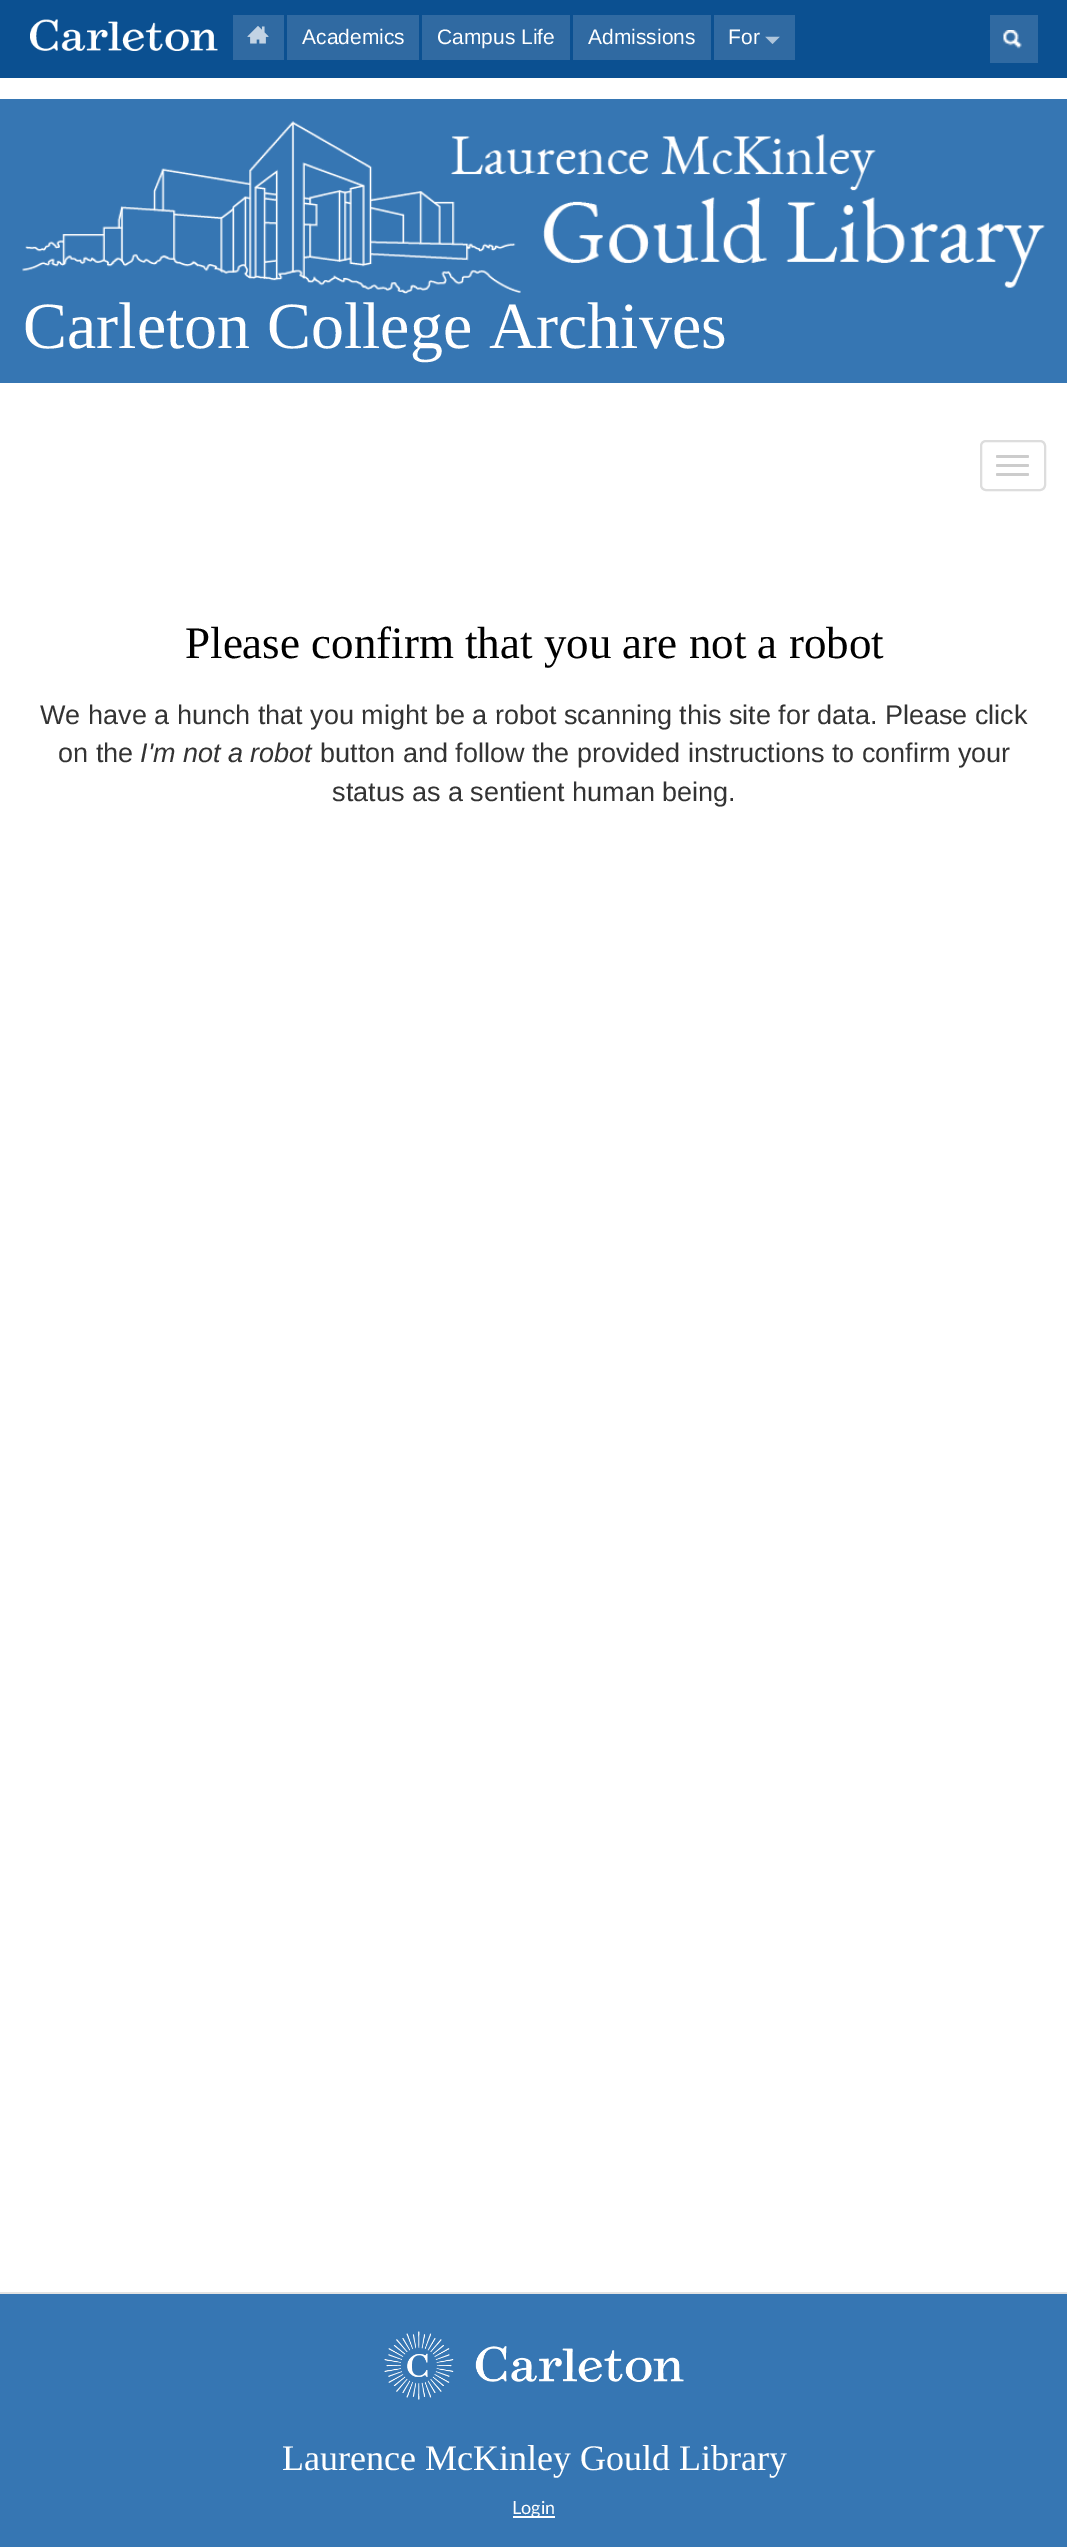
%!PS
<< /PageSize [1067 2547] >> setpagedevice
/roundrect { 5 dict begin { /r /h /w /y /x } { exch def } forall
  x r add y moveto x w add y 2 copy h add r arct x w add y h add x 1 index r arct
  x y h add x y r arct x y 2 copy exch w add exch r arct closepath end } def
/picture { 5 dict begin { /h /w /y /x /name } { exch def } forall
  gsave x y translate w h scale
  w h 8 [w 0 0 h 0 0] name (r) file false 3 colorimage grestore end } def
0 2547 translate 1 -1 scale
4 setmiterlimit
1 setgray
0 0 1067 2547 rectfill
0.043 0.314 0.569 setrgbcolor
0 0 1067 78 rectfill
(img1.rgb) 30 19 188 32 picture
0.188 0.416 0.635 setrgbcolor
233 15 51 45 rectfill
(img2.rgb) 247 26 22 18 picture
287 15 132 45 rectfill
/LiberationSans-Regular [21 0 0 -21 0 0] selectfont
1 setgray
302 44 moveto (Academics) show
0.188 0.416 0.635 setrgbcolor
422 15 148 45 rectfill
1 setgray
437 44 moveto (Campus Life) show
0.188 0.416 0.635 setrgbcolor
573 15 138 45 rectfill
1 setgray
588 44 moveto (Admissions) show
0.188 0.416 0.635 setrgbcolor
714 15 81 45 rectfill
1 setgray
728 44 moveto (For) show
/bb-Regular [15 0 0 -15 0 0] selectfont
0.682 0.773 0.859 setrgbcolor
765 47 moveto (▼) show
0.188 0.416 0.635 setrgbcolor
990 15 48 48 rectfill
(img3.rgb) 1003 30 19 19 picture
0.212 0.463 0.702 setrgbcolor
0 99 1067 284 rectfill
(img4.rgb) 22 121 1023 173 picture
/LiberationSerif-Regular [66 0 0 -66 0 0] selectfont
1 setgray
23 348 moveto (Carleton College Archives) show
0.867 setgray
2 setlinewidth
981 441 64 49 5 roundrect stroke
0.8 setgray
996 455 33 3 1.5 roundrect fill
996 464 33 3 1.5 roundrect fill
996 473 33 3 1.5 roundrect fill
/LiberationSerif-Regular [45 0 0 -45 0 0] selectfont
0 setgray
185 658 moveto (Please confirm that you are not a robot) show
/LiberationSans-Regular [27 0 0 -27 0 0] selectfont
0.2 setgray
40 724 moveto (We have a hunch that you might be a robot scanning this site for data. Please click) show
58 762 moveto (on the) show
/LiberationSans-Italic [27 0 0 -27 0 0] selectfont
140 762 moveto (I'm not a robot) show
/LiberationSans-Regular [27 0 0 -27 0 0] selectfont
320 762 moveto (button and follow the provided instructions to confirm your) show
332 801 moveto (status as a sentient human being.) show
0.212 0.463 0.702 setrgbcolor
0 2294 1067 253 rectfill
0.89 setgray
0 2292 1067 2 rectfill
(img5.rgb) 384 2331 300 69 picture
/LiberationSerif-Regular [36 0 0 -36 0 0] selectfont
1 setgray
282 2470 moveto (Laurence McKinley Gould Library) show
513 2516 42 2 rectfill
/Lato-Regular [18 0 0 -18 0 0] selectfont
512 2514 moveto (Login) show
showpage
